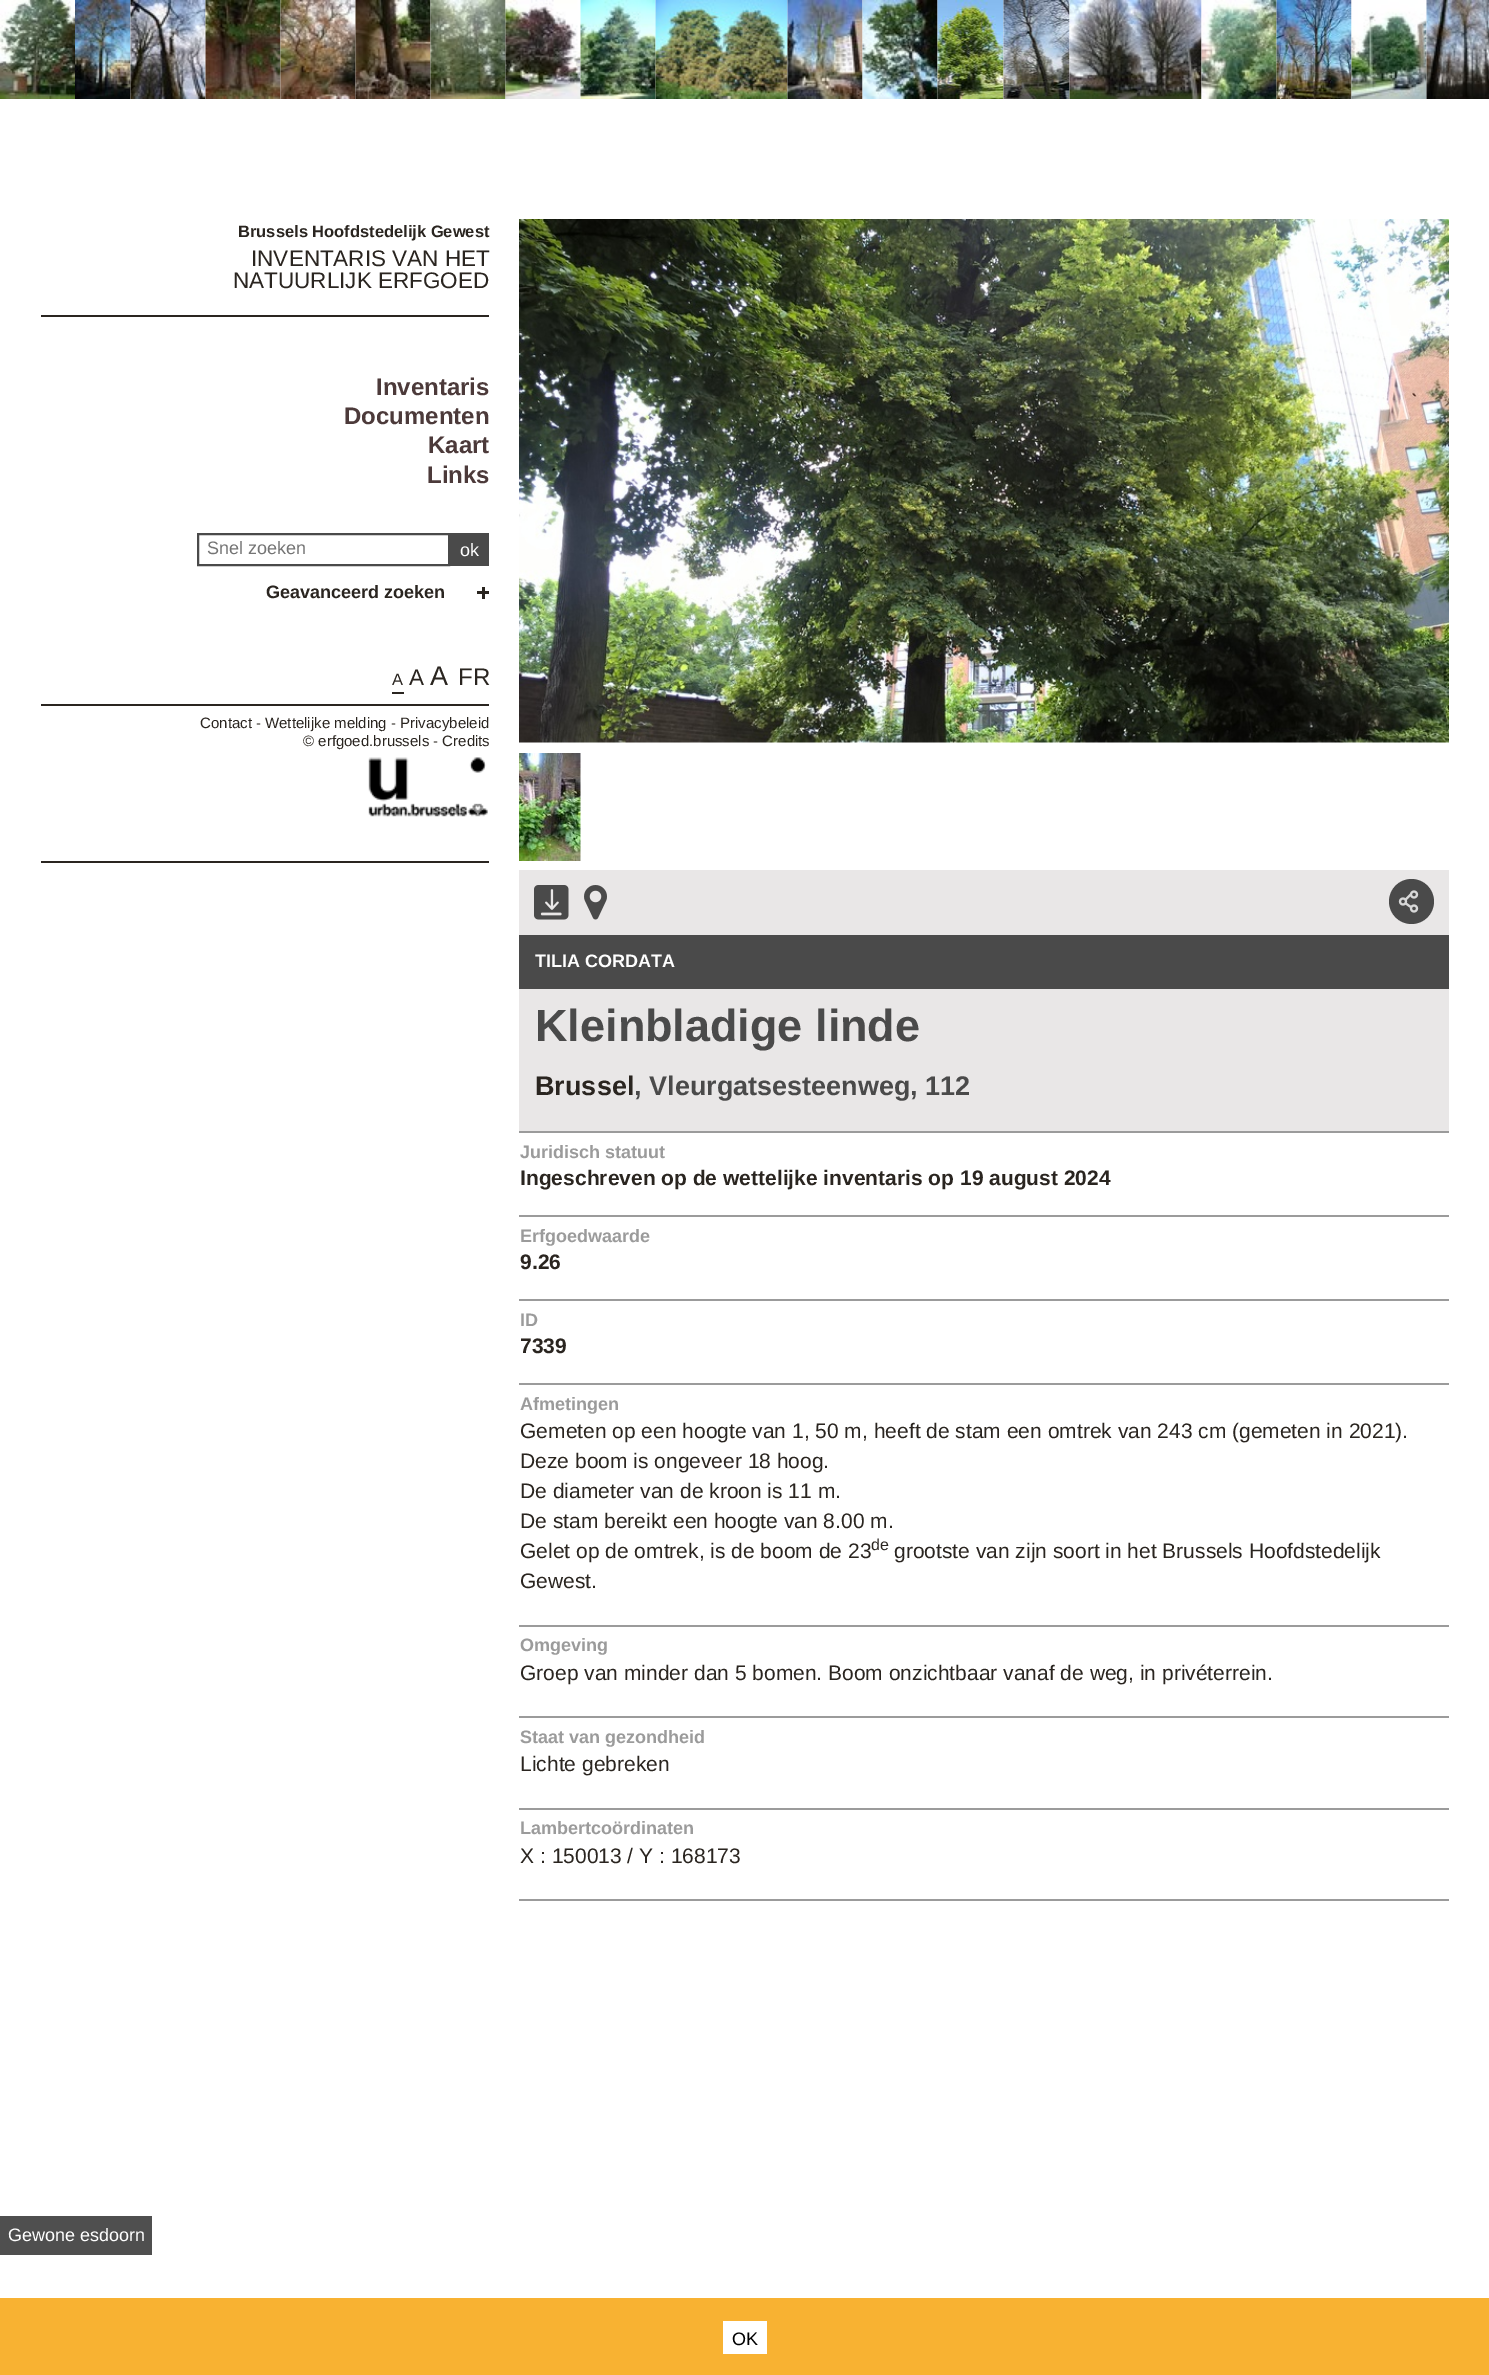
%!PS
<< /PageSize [1489 2375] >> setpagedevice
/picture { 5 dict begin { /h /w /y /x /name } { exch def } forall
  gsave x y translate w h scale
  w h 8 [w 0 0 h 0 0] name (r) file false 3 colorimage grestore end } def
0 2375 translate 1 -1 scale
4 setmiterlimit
1 setgray
0 0 1489 2375 rectfill
(img1.rgb) 0 0 75 99 picture
(img2.rgb) 75 0 56 99 picture
(img3.rgb) 130 0 76 99 picture
(img4.rgb) 205 0 76 99 picture
(img5.rgb) 280 0 76 99 picture
(img6.rgb) 355 0 76 99 picture
(img7.rgb) 430 0 76 99 picture
(img8.rgb) 505 0 76 99 picture
(img9.rgb) 580 0 76 99 picture
(img10.rgb) 655 0 133 99 picture
(img11.rgb) 787 0 76 99 picture
(img12.rgb) 862 0 76 99 picture
(img13.rgb) 937 0 67 99 picture
(img14.rgb) 1003 0 67 99 picture
(img15.rgb) 1069 0 133 99 picture
(img16.rgb) 1201 0 76 99 picture
(img17.rgb) 1276 0 76 99 picture
(img18.rgb) 1351 0 76 99 picture
(img19.rgb) 1426 0 63 99 picture
0.165 0.145 0.125 setrgbcolor
41 315 448 2 rectfill
/LiberationSans-Bold [16.5 0 0 -16.5 0 0] selectfont
238 237 moveto (Brussels Hoofdstedelijk Gewest) show
/LiberationSans-Regular [22.5 0 0 -22.5 0 0] selectfont
251 266 moveto (INVENTARIS VAN HET) show
233 288 moveto (NATUURLIJK ERFGOED) show
/LiberationSans-Bold [24 0 0 -24 0 0] selectfont
0.298 0.227 0.227 setrgbcolor
376 395 moveto (Inventaris) show
344 424 moveto (Documenten) show
428 453 moveto (Kaart) show
427 483 moveto (Links) show
0.165 0.145 0.125 setrgbcolor
41 861 448 2 rectfill
0.29 setgray
2 setlinewidth
198 534 251 31 rectstroke
/LiberationSans-Regular [18 0 0 -18 0 0] selectfont
0.459 setgray
207 554 moveto (Snel zoeken) show
0.29 setgray
450 533 39 33 rectfill
1 setgray
460 556 moveto (ok) show
/LiberationSans-Bold [18 0 0 -18 0 0] selectfont
0.165 0.145 0.125 setrgbcolor
266 598 moveto (Geavanceerd zoeken) show
482 587 3 12 rectfill
477 591 12 3 rectfill
392 692 12 2 rectfill
/LiberationSans-Regular [16.5 0 0 -16.5 0 0] selectfont
392 685 moveto (A) show
/LiberationSans-Regular [22.5 0 0 -22.5 0 0] selectfont
409 685 moveto (A) show
/LiberationSans-Regular [27 0 0 -27 0 0] selectfont
430 685 moveto (A) show
/LiberationSans-Regular [24 0 0 -24 0 0] selectfont
458 685 moveto (FR) show
41 704 448 2 rectfill
/LiberationSans-Regular [15 0 0 -15 0 0] selectfont
200 728 moveto (Contact - Wettelijke melding - Privacybeleid) show
303 746 moveto (© erfgoed.brussels - Credits) show
(img20.rgb) 368 757 120 60 picture
(img21.rgb) 519 219 930 524 picture
(img22.rgb) 519 753 62 108 picture
0.914 0.906 0.906 setrgbcolor
519 870 930 261 rectfill
0.608 setgray
519 1131 930 2 rectfill
(img23.rgb) 534 885 35 35 picture
(img24.rgb) 584 885 23 35 picture
0.29 setgray
newpath 1411.5 901.5 22.5 0 360 arc closepath fill
(img25.rgb) 1398 890 21 23 picture
519 935 930 54 rectfill
/LiberationSans-Bold [18 0 0 -18 0 0] selectfont
1 setgray
535 967 moveto (TILIA CORDATA) show
/LiberationSans-Bold [45 0 0 -45 0 0] selectfont
0.29 setgray
535 1041 moveto (Kleinbladige linde) show
/LiberationSans-Bold [27 0 0 -27 0 0] selectfont
0.165 0.145 0.125 setrgbcolor
535 1095 moveto (Brussel) show
0.29 setgray
634 1095 moveto (, Vleurgatsesteenweg, 112) show
0.608 setgray
519 1215 930 2 rectfill
/LiberationSans-Bold [18 0 0 -18 0 0] selectfont
520 1158 moveto (Juridisch statuut) show
/LiberationSans-Bold [21 0 0 -21 0 0] selectfont
0.165 0.145 0.125 setrgbcolor
520 1185 moveto (Ingeschreven op de wettelijke inventaris op 19 august 2024) show
0.608 setgray
519 1299 930 2 rectfill
/LiberationSans-Bold [18 0 0 -18 0 0] selectfont
520 1242 moveto (Erfgoedwaarde) show
/LiberationSans-Bold [21 0 0 -21 0 0] selectfont
0.165 0.145 0.125 setrgbcolor
520 1269 moveto (9.26) show
0.608 setgray
519 1383 930 2 rectfill
/LiberationSans-Bold [18 0 0 -18 0 0] selectfont
520 1326 moveto (ID) show
/LiberationSans-Bold [21 0 0 -21 0 0] selectfont
0.165 0.145 0.125 setrgbcolor
520 1353 moveto (7339) show
0.608 setgray
519 1625 930 2 rectfill
/LiberationSans-Bold [18 0 0 -18 0 0] selectfont
520 1410 moveto (Afmetingen) show
/LiberationSans-Regular [21 0 0 -21 0 0] selectfont
0.165 0.145 0.125 setrgbcolor
520 1438 moveto (Gemeten op een hoogte van 1, 50 m, heeft de stam een omtrek van 243 cm \(gemeten in 2021\).) show
520 1468 moveto (Deze boom is ongeveer 18 hoog.) show
520 1498 moveto (De diameter van de kroon is 11 m.) show
520 1528 moveto (De stam bereikt een hoogte van 8.00 m.) show
520 1558 moveto (Gelet op de omtrek, is de boom de 23) show
/LiberationSans-Regular [16 0 0 -16 0 0] selectfont
871 1550 moveto (de) show
/LiberationSans-Regular [21 0 0 -21 0 0] selectfont
894 1558 moveto (grootste van zijn soort in het Brussels Hoofdstedelijk) show
520 1588 moveto (Gewest.) show
0.608 setgray
519 1716 930 2 rectfill
/LiberationSans-Bold [18 0 0 -18 0 0] selectfont
520 1651 moveto (Omgeving) show
/LiberationSans-Regular [21 0 0 -21 0 0] selectfont
0.165 0.145 0.125 setrgbcolor
520 1680 moveto (Groep van minder dan 5 bomen. Boom onzichtbaar vanaf de weg, in privéterrein.) show
0.608 setgray
519 1808 930 2 rectfill
/LiberationSans-Bold [18 0 0 -18 0 0] selectfont
520 1743 moveto (Staat van gezondheid) show
/LiberationSans-Regular [21 0 0 -21 0 0] selectfont
0.165 0.145 0.125 setrgbcolor
520 1771 moveto (Lichte gebreken) show
0.608 setgray
519 1899 930 2 rectfill
/LiberationSans-Bold [18 0 0 -18 0 0] selectfont
520 1834 moveto (Lambertcoördinaten) show
/LiberationSans-Regular [21 0 0 -21 0 0] selectfont
0.165 0.145 0.125 setrgbcolor
520 1863 moveto (X : 150013 / Y : 168173) show
0.31 setgray
0 2216 152 39 rectfill
/LiberationSans-Regular [18 0 0 -18 0 0] selectfont
1 setgray
8 2241 moveto (Gewone esdoorn) show
0.973 0.698 0.196 setrgbcolor
0 2298 1489 77 rectfill
1 setgray
723 2321 44 33 rectfill
0 setgray
732 2345 moveto (OK) show
showpage
